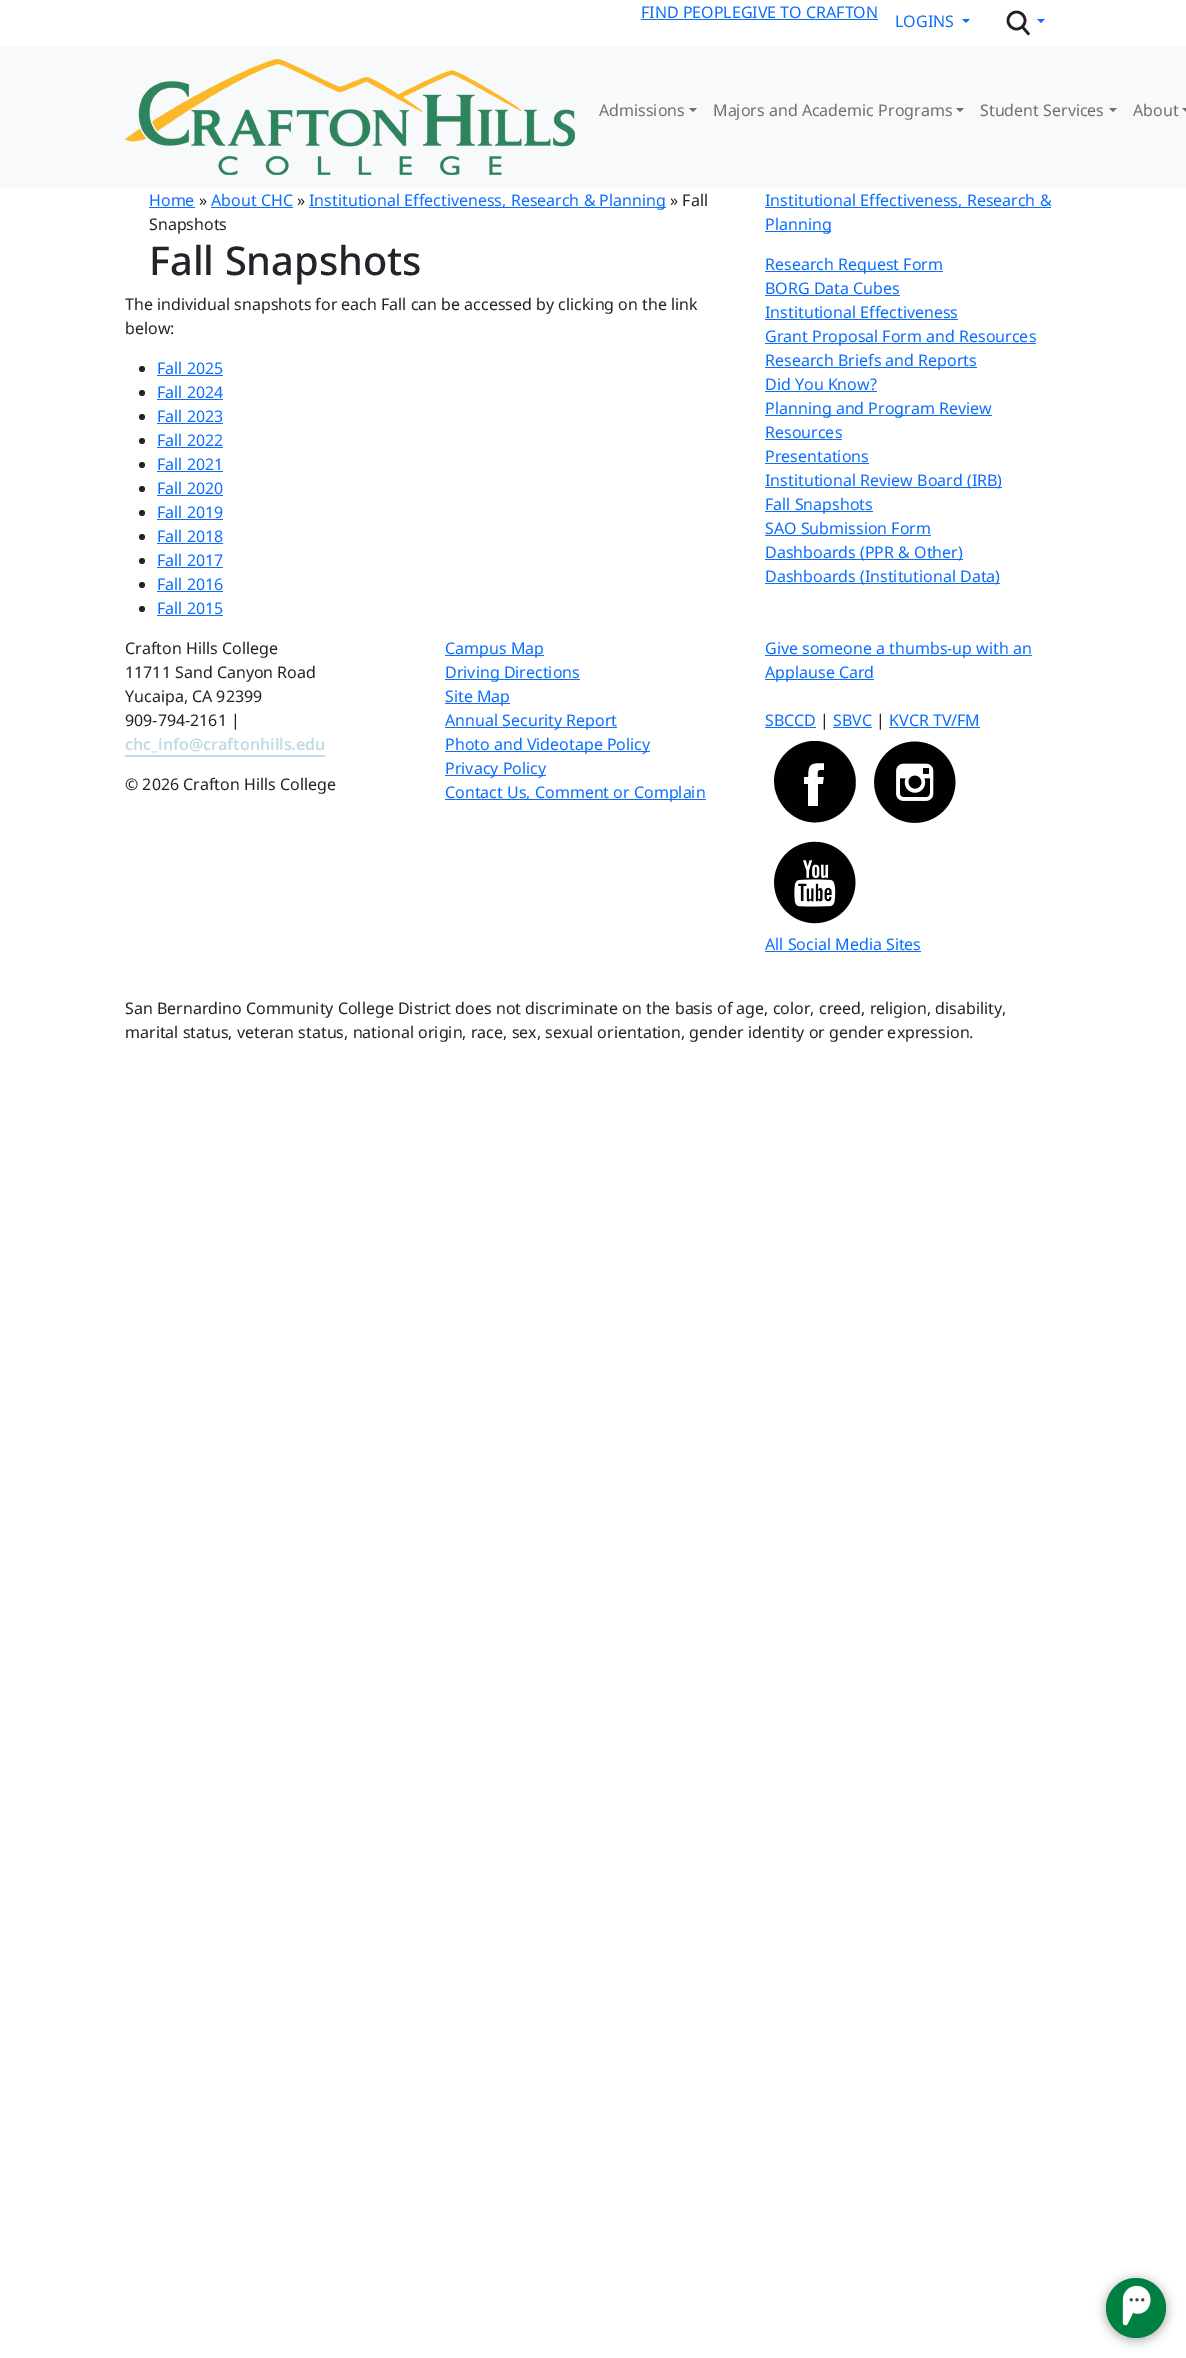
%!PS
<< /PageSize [1186 2358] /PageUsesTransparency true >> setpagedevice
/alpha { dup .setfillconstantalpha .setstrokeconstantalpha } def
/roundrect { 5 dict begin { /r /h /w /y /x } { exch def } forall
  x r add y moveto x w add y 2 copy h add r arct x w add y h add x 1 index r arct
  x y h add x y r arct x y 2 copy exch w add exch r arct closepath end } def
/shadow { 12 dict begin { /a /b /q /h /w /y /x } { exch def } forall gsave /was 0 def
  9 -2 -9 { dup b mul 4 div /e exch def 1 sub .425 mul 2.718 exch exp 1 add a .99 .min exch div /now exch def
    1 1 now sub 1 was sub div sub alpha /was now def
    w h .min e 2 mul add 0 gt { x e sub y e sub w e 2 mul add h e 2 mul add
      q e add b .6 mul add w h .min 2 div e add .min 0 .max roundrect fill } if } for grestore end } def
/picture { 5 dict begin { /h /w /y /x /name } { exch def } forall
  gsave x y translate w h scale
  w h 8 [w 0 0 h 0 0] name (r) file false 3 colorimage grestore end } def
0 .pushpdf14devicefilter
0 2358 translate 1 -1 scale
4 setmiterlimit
1 setgray
0 0 1186 2358 rectfill
/NotoSans-Regular [16 0 0 -16 0 0] selectfont
0.051 0.431 0.992 setrgbcolor
641 18 moveto (FIND PEOPLEGIVE TO CRAFTON) show
641 19 237 1 rectfill
895 27 moveto (LOGINS) show
newpath 962 19 moveto 970 19 lineto 966 23 lineto closepath fill
0.137 0.122 0.125 setrgbcolor
2.6 setlinewidth
newpath 1016.5 20.5 8.5 0 360 arc closepath stroke
0.051 0.431 0.992 setrgbcolor
newpath 1037 19 moveto 1045 19 lineto 1041 23 lineto closepath fill
0.137 0.122 0.125 setrgbcolor
newpath 1023 27.5 moveto 1029 34.5 lineto stroke
0.973 0.976 0.98 setrgbcolor
0 46 1186 142 rectfill
(img1.rgb) 125 59 450 116 picture
0.439 0.439 0.443 setrgbcolor
599 116 moveto (Admissions) show
newpath 689 108 moveto 697 108 lineto 693 112 lineto closepath fill
713 116 moveto (Majors and Academic Programs) show
newpath 956 108 moveto 964 108 lineto 960 112 lineto closepath fill
980 116 moveto (Student Services) show
newpath 1109 108 moveto 1117 108 lineto 1113 112 lineto closepath fill
1133 116 moveto (About) show
newpath 1182 108 moveto 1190 108 lineto 1186 112 lineto closepath fill
0.051 0.431 0.992 setrgbcolor
149 206 moveto (Home) show
149 207 46 1 rectfill
0.129 0.145 0.161 setrgbcolor
199 206 moveto (») show
0.051 0.431 0.992 setrgbcolor
211 206 moveto (About CHC) show
211 207 82 1 rectfill
0.129 0.145 0.161 setrgbcolor
297 206 moveto (») show
0.051 0.431 0.992 setrgbcolor
309 207 357 1 rectfill
309 206 moveto (Institutional Effectiveness, Research & Planning) show
0.129 0.145 0.161 setrgbcolor
670 206 moveto (» Fall) show
149 230 moveto (Snapshots) show
/NotoSans-Medium [39.75 0 0 -39.75 0 0] selectfont
149 275 moveto (Fall Snapshots) show
/NotoSans-Regular [16 0 0 -16 0 0] selectfont
125 310 moveto (The individual snapshots for each Fall can be accessed by clicking on the link) show
125 334 moveto (below:) show
newpath 142 369 3 0 360 arc closepath fill
0.051 0.431 0.992 setrgbcolor
157 374 moveto (Fall 2025) show
157 375 66 1 rectfill
0.129 0.145 0.161 setrgbcolor
newpath 142 393 3 0 360 arc closepath fill
0.051 0.431 0.992 setrgbcolor
157 398 moveto (Fall 2024) show
157 399 66 1 rectfill
0.129 0.145 0.161 setrgbcolor
newpath 142 417 3 0 360 arc closepath fill
0.051 0.431 0.992 setrgbcolor
157 422 moveto (Fall 2023) show
157 423 66 1 rectfill
0.129 0.145 0.161 setrgbcolor
newpath 142 441 3 0 360 arc closepath fill
0.051 0.431 0.992 setrgbcolor
157 446 moveto (Fall 2022) show
157 447 66 1 rectfill
0.129 0.145 0.161 setrgbcolor
newpath 142 465 3 0 360 arc closepath fill
0.051 0.431 0.992 setrgbcolor
157 470 moveto (Fall 2021) show
157 471 66 1 rectfill
0.129 0.145 0.161 setrgbcolor
newpath 142 489 3 0 360 arc closepath fill
0.051 0.431 0.992 setrgbcolor
157 494 moveto (Fall 2020) show
157 495 66 1 rectfill
0.129 0.145 0.161 setrgbcolor
newpath 142 513 3 0 360 arc closepath fill
0.051 0.431 0.992 setrgbcolor
157 518 moveto (Fall 2019) show
157 519 66 1 rectfill
0.129 0.145 0.161 setrgbcolor
newpath 142 537 3 0 360 arc closepath fill
0.051 0.431 0.992 setrgbcolor
157 542 moveto (Fall 2018) show
157 543 66 1 rectfill
0.129 0.145 0.161 setrgbcolor
newpath 142 561 3 0 360 arc closepath fill
0.051 0.431 0.992 setrgbcolor
157 566 moveto (Fall 2017) show
157 567 66 1 rectfill
0.129 0.145 0.161 setrgbcolor
newpath 142 585 3 0 360 arc closepath fill
0.051 0.431 0.992 setrgbcolor
157 590 moveto (Fall 2016) show
157 591 66 1 rectfill
0.129 0.145 0.161 setrgbcolor
newpath 142 609 3 0 360 arc closepath fill
0.051 0.431 0.992 setrgbcolor
157 614 moveto (Fall 2015) show
157 615 66 1 rectfill
765 207 286 1 rectfill
765 206 moveto (Institutional Effectiveness, Research &) show
765 231 66 1 rectfill
765 230 moveto (Planning) show
765 271 178 1 rectfill
765 270 moveto (Research Request Form) show
765 294 moveto (BORG Data Cubes) show
765 295 135 1 rectfill
765 318 moveto (Institutional Effectiveness) show
765 319 193 1 rectfill
765 343 271 1 rectfill
765 342 moveto (Grant Proposal Form and Resources) show
765 367 212 1 rectfill
765 366 moveto (Research Briefs and Reports) show
765 390 moveto (Did You Know?) show
765 391 112 1 rectfill
765 415 227 1 rectfill
765 414 moveto (Planning and Program Review) show
765 438 moveto (Resources) show
765 439 77 1 rectfill
765 462 moveto (Presentations) show
765 463 104 1 rectfill
765 487 237 1 rectfill
765 486 moveto (Institutional Review Board \(IRB\)) show
765 511 108 1 rectfill
765 510 moveto (Fall Snapshots) show
765 534 moveto (SAO Submission Form) show
765 535 166 1 rectfill
765 559 198 1 rectfill
765 558 moveto (Dashboards \(PPR & Other\)) show
765 583 235 1 rectfill
765 582 moveto (Dashboards \(Institutional Data\)) show
0.71 setgray
1105 2279 62 62 31 5 1 shadow
0 0.502 0.251 setrgbcolor
newpath 1136 2308 30 0 360 arc closepath fill
(img2.rgb) 1122 2285 29 41 picture
0.129 0.145 0.161 setrgbcolor
125 654 moveto (Crafton Hills College) show
125 678 moveto (11711 Sand Canyon Road) show
125 702 moveto (Yucaipa, CA 92399) show
125 726 moveto (909-794-2161 |) show
/NotoSans-SemiBold [16 0 0 -16 0 0] selectfont
0.753 0.855 0.906 setrgbcolor
125 750 moveto (chc_info@craftonhills.edu) show
125 755 200 2 rectfill
/NotoSans-Regular [16 0 0 -16 0 0] selectfont
0.129 0.145 0.161 setrgbcolor
125 790 moveto (© 2026 Crafton Hills College) show
0.051 0.431 0.992 setrgbcolor
445 655 99 1 rectfill
445 654 moveto (Campus Map) show
445 679 135 1 rectfill
445 678 moveto (Driving Directions) show
445 703 65 1 rectfill
445 702 moveto (Site Map) show
445 727 172 1 rectfill
445 726 moveto (Annual Security Report) show
445 751 205 1 rectfill
445 750 moveto (Photo and Videotape Policy) show
445 775 101 1 rectfill
445 774 moveto (Privacy Policy) show
445 799 261 1 rectfill
445 798 moveto (Contact Us, Comment or Complain) show
765 655 267 1 rectfill
765 654 moveto (Give someone a thumbs-up with an) show
765 679 109 1 rectfill
765 678 moveto (Applause Card) show
765 726 moveto (SBCCD) show
765 727 51 1 rectfill
0.129 0.145 0.161 setrgbcolor
820 726 moveto (|) show
0.051 0.431 0.992 setrgbcolor
833 726 moveto (SBVC) show
833 727 39 1 rectfill
0.129 0.145 0.161 setrgbcolor
876 726 moveto (|) show
0.051 0.431 0.992 setrgbcolor
889 726 moveto (KVCR TV/FM) show
889 727 91 1 rectfill
0.004 setgray
newpath 815 741 moveto 804 741 794 745 786 753 curveto 755 784 790 836 831 819 curveto 843 814 852 803 855 790 curveto 860 765 840 741 815 741 curveto closepath 824 770 moveto 817 770 818 770 818 777 curveto 824 777 lineto 823 784 lineto 818 784 lineto 818 806 lineto 808 806 lineto 808 784 lineto 804 784 lineto 804 777 lineto 808 777 lineto 808 763 811 763 824 763 curveto closepath fill
(img3.rgb) 874 741 82 82 picture
(img4.rgb) 774 841 82 83 picture
0.051 0.431 0.992 setrgbcolor
765 950 moveto (All Social Media Sites) show
765 951 156 1 rectfill
0.129 0.145 0.161 setrgbcolor
125 1014 moveto (San Bernardino Community College District does not discriminate on the basis of age, color, creed, religion, disability,) show
125 1038 moveto (marital status, veteran status, national origin, race, sex, sexual orientation, gender identity or gender expression.) show
.poppdf14devicefilter showpage
